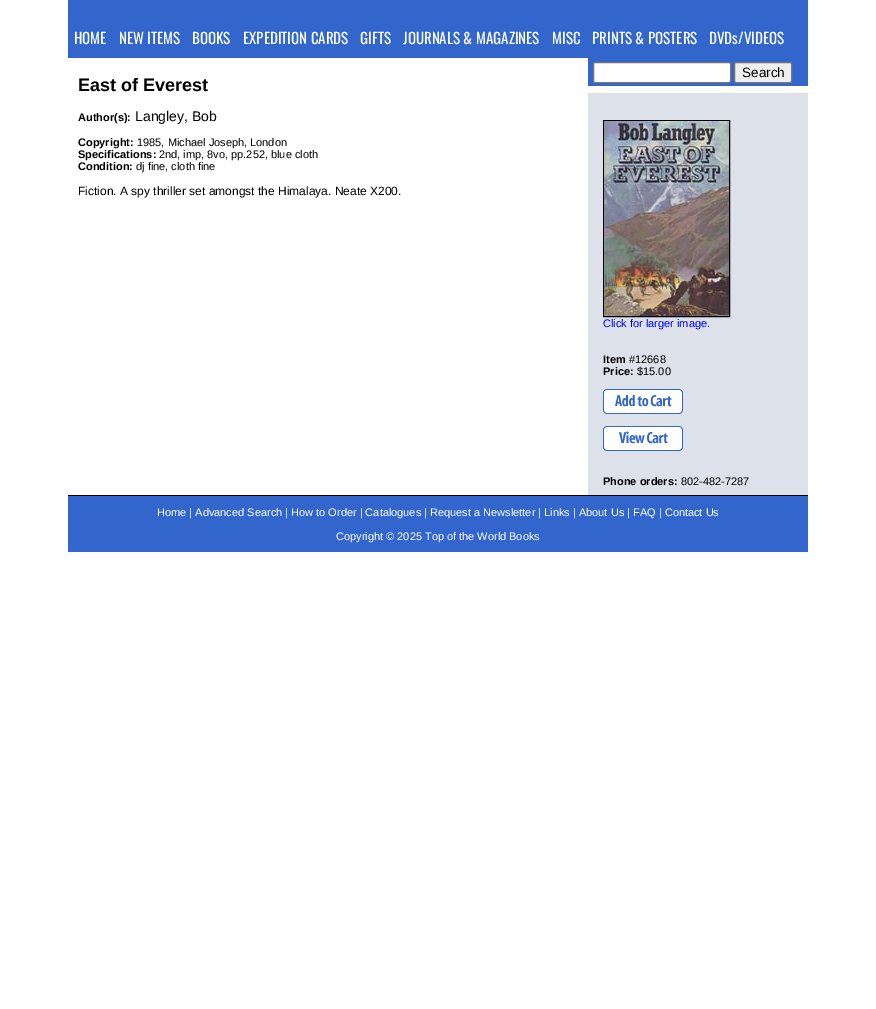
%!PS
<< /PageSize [876 1009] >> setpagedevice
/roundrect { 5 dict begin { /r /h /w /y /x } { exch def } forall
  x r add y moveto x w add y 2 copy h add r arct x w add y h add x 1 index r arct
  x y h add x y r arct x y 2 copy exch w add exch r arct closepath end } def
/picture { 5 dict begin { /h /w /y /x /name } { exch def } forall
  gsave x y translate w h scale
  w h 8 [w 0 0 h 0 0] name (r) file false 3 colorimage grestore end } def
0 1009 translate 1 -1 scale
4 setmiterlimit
1 setgray
0 0 876 1009 rectfill
0.2 0.4 0.8 setrgbcolor
68 0 740 58 rectfill
/Oswald-Regular [15 0 0 -15 0 0] selectfont
1 setgray
74 44 moveto (HOME) show
119 44 moveto (NEW ITEMS) show
192 44 moveto (BOOKS) show
243 44 moveto (EXPEDITION CARDS) show
360 44 moveto (GIFTS) show
403 44 moveto (JOURNALS & MAGAZINES) show
552 44 moveto (MISC) show
592 44 moveto (PRINTS & POSTERS) show
709 44 moveto (DVDs/VIDEOS) show
0.2 0.4 0.8 setrgbcolor
588 58 220 28 rectfill
1 setgray
593.5 62.5 137 20 1.5 roundrect gsave fill grestore
0.463 setgray
stroke
0.937 setgray
734.5 62.5 57 20 1.5 roundrect gsave fill grestore
0.463 setgray
stroke
/LiberationSans-Regular [13.5 0 0 -13.5 0 0] selectfont
0 setgray
742 77 moveto (Search) show
/LiberationSans-Bold [18 0 0 -18 0 0] selectfont
78 91 moveto (East of Everest) show
/LiberationSans-Bold [11 0 0 -11 0 0] selectfont
78 121 moveto (Author\(s\):) show
/LiberationSans-Regular [14 0 0 -14 0 0] selectfont
135 121 moveto (Langley, Bob) show
/LiberationSans-Bold [11 0 0 -11 0 0] selectfont
78 146 moveto (Copyright:) show
/LiberationSans-Regular [11 0 0 -11 0 0] selectfont
137 146 moveto (1985, Michael Joseph, London) show
/LiberationSans-Bold [11 0 0 -11 0 0] selectfont
78 158 moveto (Specifications:) show
/LiberationSans-Regular [11 0 0 -11 0 0] selectfont
159 158 moveto (2nd, imp, 8vo, pp.252, blue cloth) show
/LiberationSans-Bold [11 0 0 -11 0 0] selectfont
78 170 moveto (Condition:) show
/LiberationSans-Regular [11 0 0 -11 0 0] selectfont
136 170 moveto (dj fine, cloth fine) show
/LiberationSans-Regular [12 0 0 -12 0 0] selectfont
78 195 moveto (Fiction. A spy thriller set amongst the Himalaya. Neate X200.) show
0.867 0.882 0.918 setrgbcolor
588 93 220 402 rectfill
0 setgray
603.5 120.5 126 196 rectstroke
(img1.rgb) 604 121 125 195 picture
/LiberationSans-Regular [11 0 0 -11 0 0] selectfont
0 0 1 setrgbcolor
603 327 moveto (Click for larger image.) show
/LiberationSans-Bold [11 0 0 -11 0 0] selectfont
0 setgray
603 363 moveto (Item) show
/LiberationSans-Regular [11 0 0 -11 0 0] selectfont
629 363 moveto (#12668) show
/LiberationSans-Bold [11 0 0 -11 0 0] selectfont
603 375 moveto (Price:) show
/LiberationSans-Regular [11 0 0 -11 0 0] selectfont
637 375 moveto ($15.00) show
(img2.rgb) 603 389 80 25 picture
(img3.rgb) 603 426 80 25 picture
/LiberationSans-Bold [11 0 0 -11 0 0] selectfont
603 485 moveto (Phone orders:) show
/LiberationSans-Regular [11 0 0 -11 0 0] selectfont
681 485 moveto (802-482-7287) show
0.2 0.4 0.8 setrgbcolor
68 496 740 56 rectfill
0 setgray
68 495 740 1 rectfill
1 setgray
157 516 moveto (Home | Advanced Search | How to Order | Catalogues | Request a Newsletter | Links | About Us | FAQ | Contact Us) show
336 540 moveto (Copyright © 2025 Top of the World Books) show
showpage
